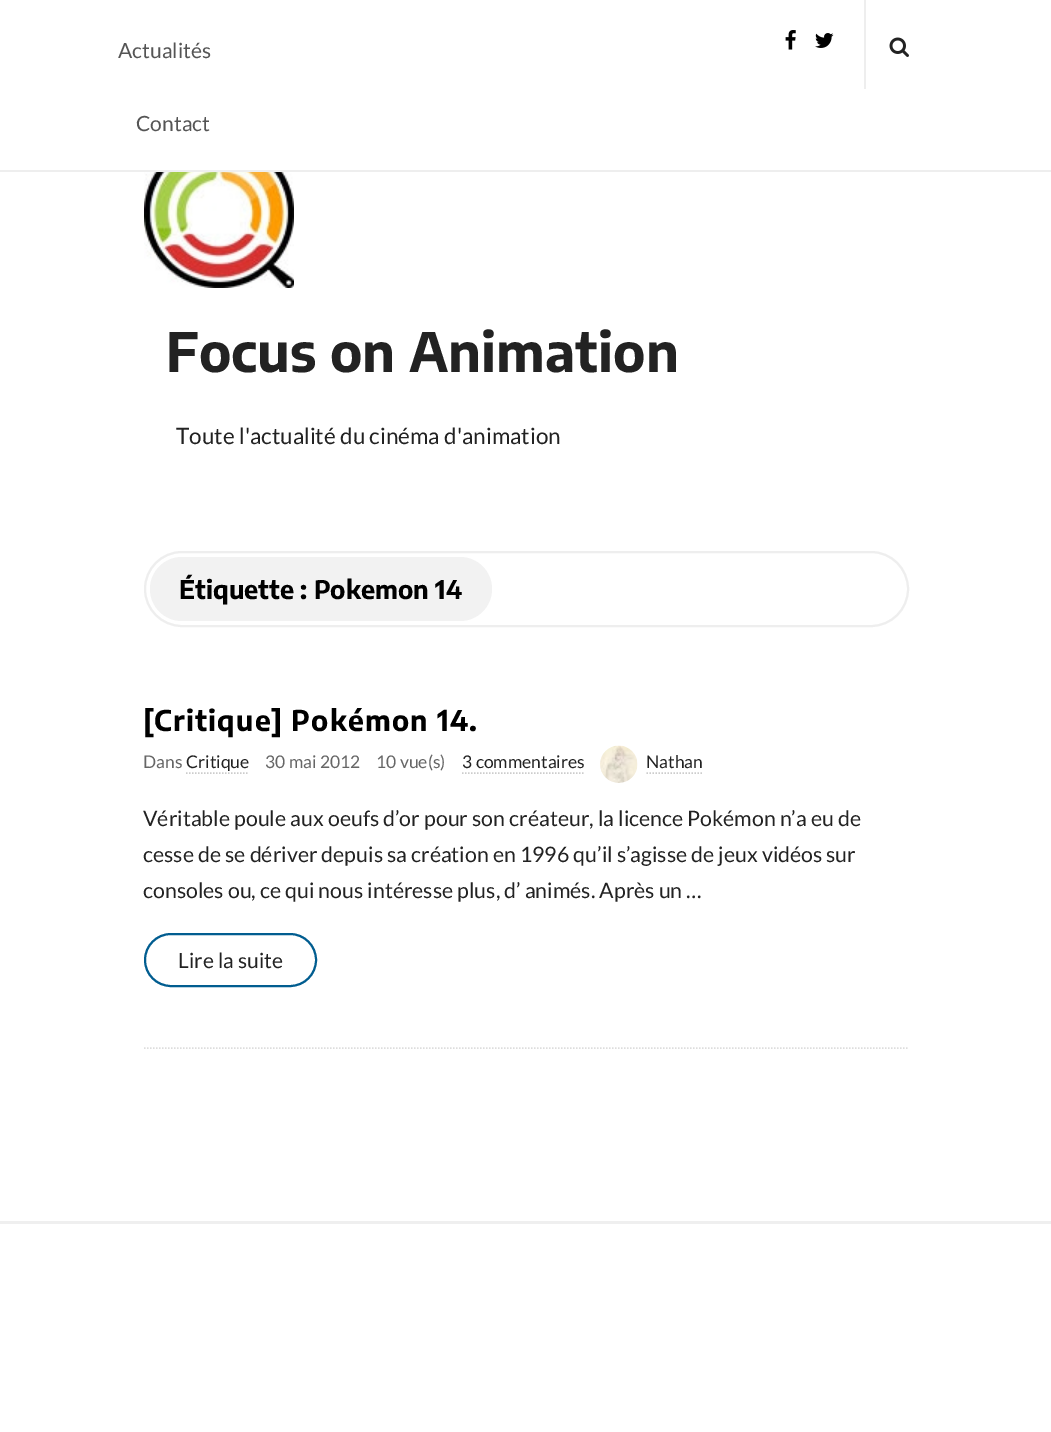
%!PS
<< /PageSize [1051 1432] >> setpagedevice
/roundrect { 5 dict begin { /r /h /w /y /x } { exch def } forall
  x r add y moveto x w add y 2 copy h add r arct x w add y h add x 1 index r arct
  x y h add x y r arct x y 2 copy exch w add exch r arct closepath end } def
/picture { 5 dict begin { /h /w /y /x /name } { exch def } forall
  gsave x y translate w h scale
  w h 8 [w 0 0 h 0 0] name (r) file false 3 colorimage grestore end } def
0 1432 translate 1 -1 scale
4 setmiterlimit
1 setgray
0 0 1051 1432 rectfill
0.933 setgray
0 170 1051 2 rectfill
/Lato-Regular [21 0 0 -21 0 0] selectfont
0.333 setgray
118 58 moveto (Actualités) show
136 131 moveto (Contact) show
(img1.rgb) 785 30 11 20 picture
(img2.rgb) 815 33 19 15 picture
0.933 setgray
864 0 2 89 rectfill
(img3.rgb) 889 37 20 20 picture
(img4.rgb) 144 172 150 116 picture
/EncodeSansCondensed-Bold [54 0 0 -54 0 0] selectfont
0.133 setgray
166 372 moveto (Focus on Animation) show
/Lato-Regular [22.5 0 0 -22.5 0 0] selectfont
176 444 moveto (Toute l'actualité du cinéma d'animation) show
0.933 setgray
2 setlinewidth
145 552 763 74 37 roundrect stroke
0.949 setgray
150 557 342 64 32 roundrect fill
/EncodeSansCondensed-Bold [25.5 0 0 -25.5 0 0] selectfont
0 setgray
179 599 moveto (Étiquette : Pokemon 14) show
0.867 setgray
1.5 setlinewidth
[1.5 1.5] 0 setdash
newpath 144 1048 moveto 909 1048 lineto stroke
/EncodeSansCondensed-Bold [28.5 0 0 -28.5 0 0] selectfont
0 setgray
143 731 moveto 1.2 0 ([Critique] Pokémon 14.) ashow
/Lato-Regular [17.5 0 0 -17.5 0 0] selectfont
0.4 setgray
143 768 moveto (Dans) show
0.133 setgray
186 768 moveto (Critique) show
0.8 setgray
newpath 186 773 moveto 249 773 lineto stroke
0.4 setgray
265 768 moveto (30 mai 2012) show
376 768 moveto (10 vue\(s\)) show
0.133 setgray
462 768 moveto (3 commentaires) show
0.8 setgray
newpath 462 773 moveto 583.5 773 lineto stroke
(img5.rgb) 600 745 38 38 picture
0.133 setgray
646 768 moveto (Nathan) show
0.8 setgray
newpath 646.5 773 moveto 702 773 lineto stroke
/Lato-Regular [21.3 0 0 -21.3 0 0] selectfont
0.133 setgray
143 826 moveto (Véritable poule aux oeufs d’or pour son créateur, la licence Pokémon n’a eu de) show
143 862 moveto (cesse de se dériver depuis sa création en 1996 qu’il s’agisse de jeux vidéos sur) show
143 898 moveto (consoles ou, ce qui nous intéresse plus, d’ animés. Après un …) show
0.004 0.365 0.565 setrgbcolor
2 setlinewidth
[] 0 setdash
145 934 171 52 26 roundrect stroke
/Lato-Regular [21 0 0 -21 0 0] selectfont
0.133 setgray
178 968 moveto (Lire la suite) show
0.937 setgray
0 1221 1051 3 rectfill
showpage
